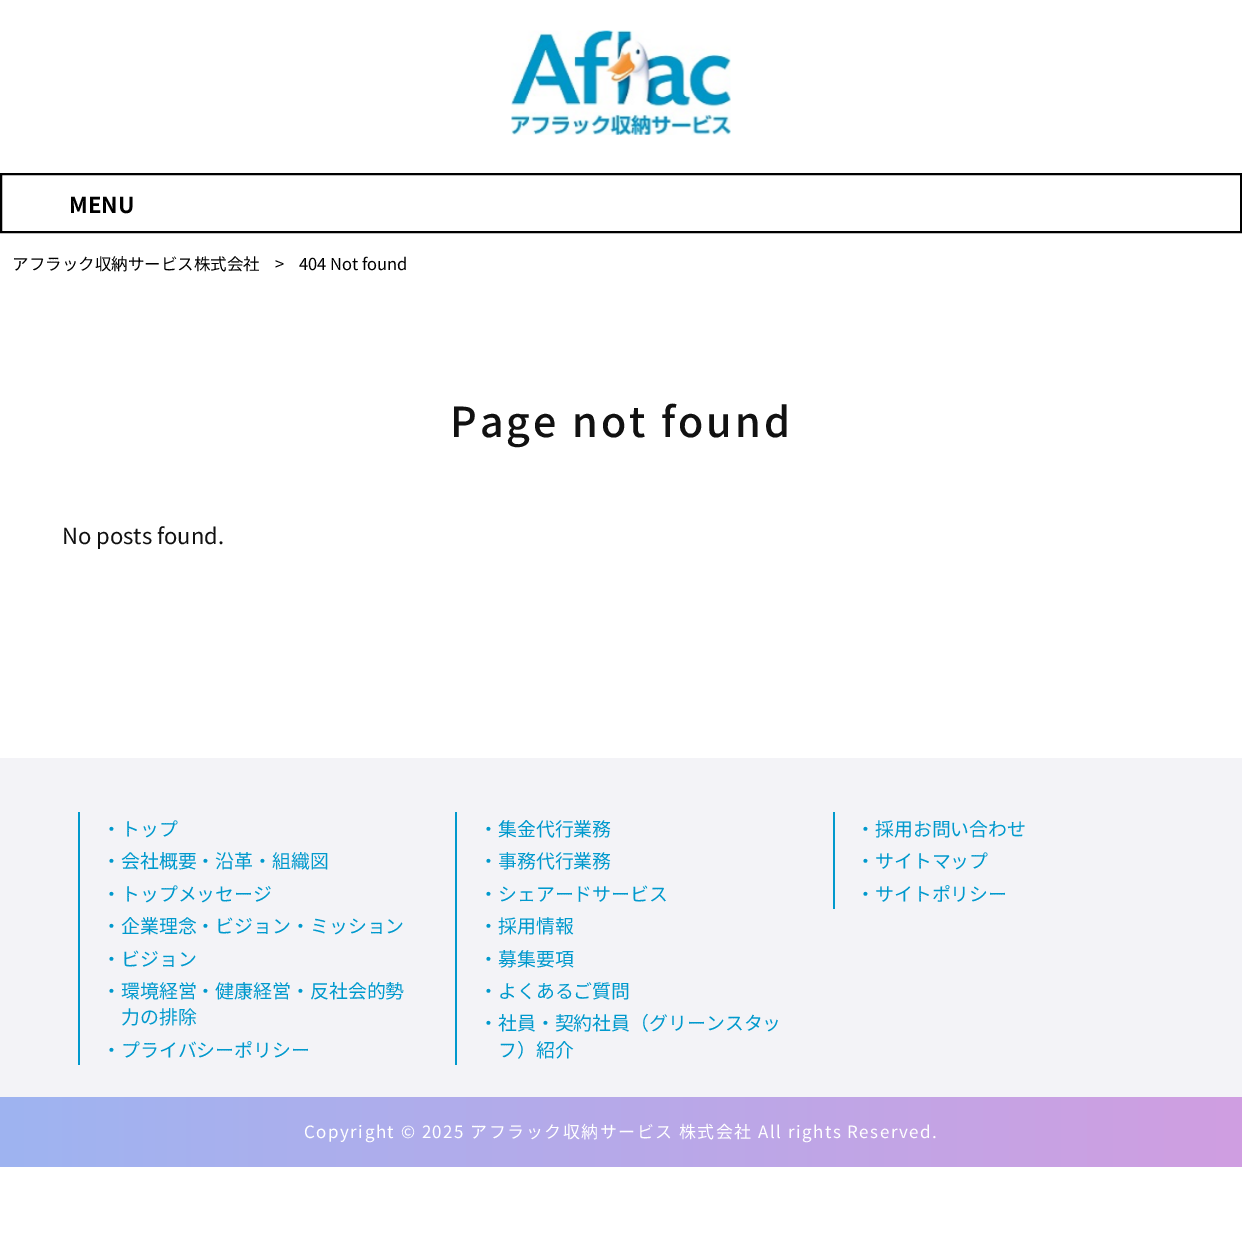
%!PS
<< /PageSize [1242 1250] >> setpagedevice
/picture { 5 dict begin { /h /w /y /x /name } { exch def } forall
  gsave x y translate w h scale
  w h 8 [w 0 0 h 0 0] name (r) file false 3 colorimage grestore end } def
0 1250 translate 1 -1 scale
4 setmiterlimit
1 setgray
0 0 1242 1250 rectfill
(img1.rgb) 511 30 220 105 picture
0 setgray
2 setlinewidth
1 174 1240 58 rectstroke
/NotoSansJP-Bold [22 0 0 -22 0 0] selectfont
69 213 moveto (MENU) show
/NotoSansJP-Regular [16.5 0 0 -16.5 0 0] selectfont
12 270 moveto (アフラック収納サービス株式会社) show
275 270 moveto (>) show
299 270 moveto (404 Not found) show
/NotoSansJP-Medium [41.25 0 0 -41.25 0 0] selectfont
0.067 setgray
450 437 moveto 3 0 (Page not found) ashow
/NotoSansJP-Regular [22 0 0 -22 0 0] selectfont
62 544 moveto (No posts found.) show
0.953 0.953 0.969 setrgbcolor
0 758 1242 339 rectfill
0 0.6 0.804 setrgbcolor
78 812 2 253 rectfill
/NotoSansJP-Regular [18.9 0 0 -18.9 0 0] selectfont
102 836 moveto (・トップ) show
455 812 2 253 rectfill
479 836 moveto (・集金代行業務) show
833 812 2 97 rectfill
856 836 moveto (・採用お問い合わせ) show
102 868 moveto (・会社概要・沿革・組織図) show
479 868 moveto (・事務代行業務) show
856 868 moveto (・サイトマップ) show
102 901 moveto (・トップメッセージ) show
479 901 moveto (・シェアードサービス) show
856 901 moveto (・サイトポリシー) show
102 933 moveto (・企業理念・ビジョン・ミッション) show
479 933 moveto (・採用情報) show
102 966 moveto (・ビジョン) show
479 966 moveto (・募集要項) show
102 998 moveto (・環境経営・健康経営・反社会的勢) show
121 1024 moveto (力の排除) show
479 998 moveto (・よくあるご質問) show
102 1057 moveto (・プライバシーポリシー) show
479 1030 moveto (・社員・契約社員（グリーンスタッ) show
498 1057 moveto (フ）紹介) show
gsave newpath 0 1097 moveto 1242 1097 lineto 1242 1167 lineto 0 1167 lineto closepath clip newpath
<< /ShadingType 2 /ColorSpace /DeviceRGB /Coords [0 1132 1242 1132] /Extend [true true] /Function << /FunctionType 2 /Domain [0 1] /C0 [0.62 0.706 0.945] /C1 [0.816 0.62 0.882] /N 1 >> >> shfill grestore
/NotoSansJP-Regular [16.95 0 0 -16.95 0 0] selectfont
1 setgray
304 1138 moveto 1.5 0 (Copyright © 2025 アフラック収納サービス 株式会社 All rights Reserved.) ashow
showpage
